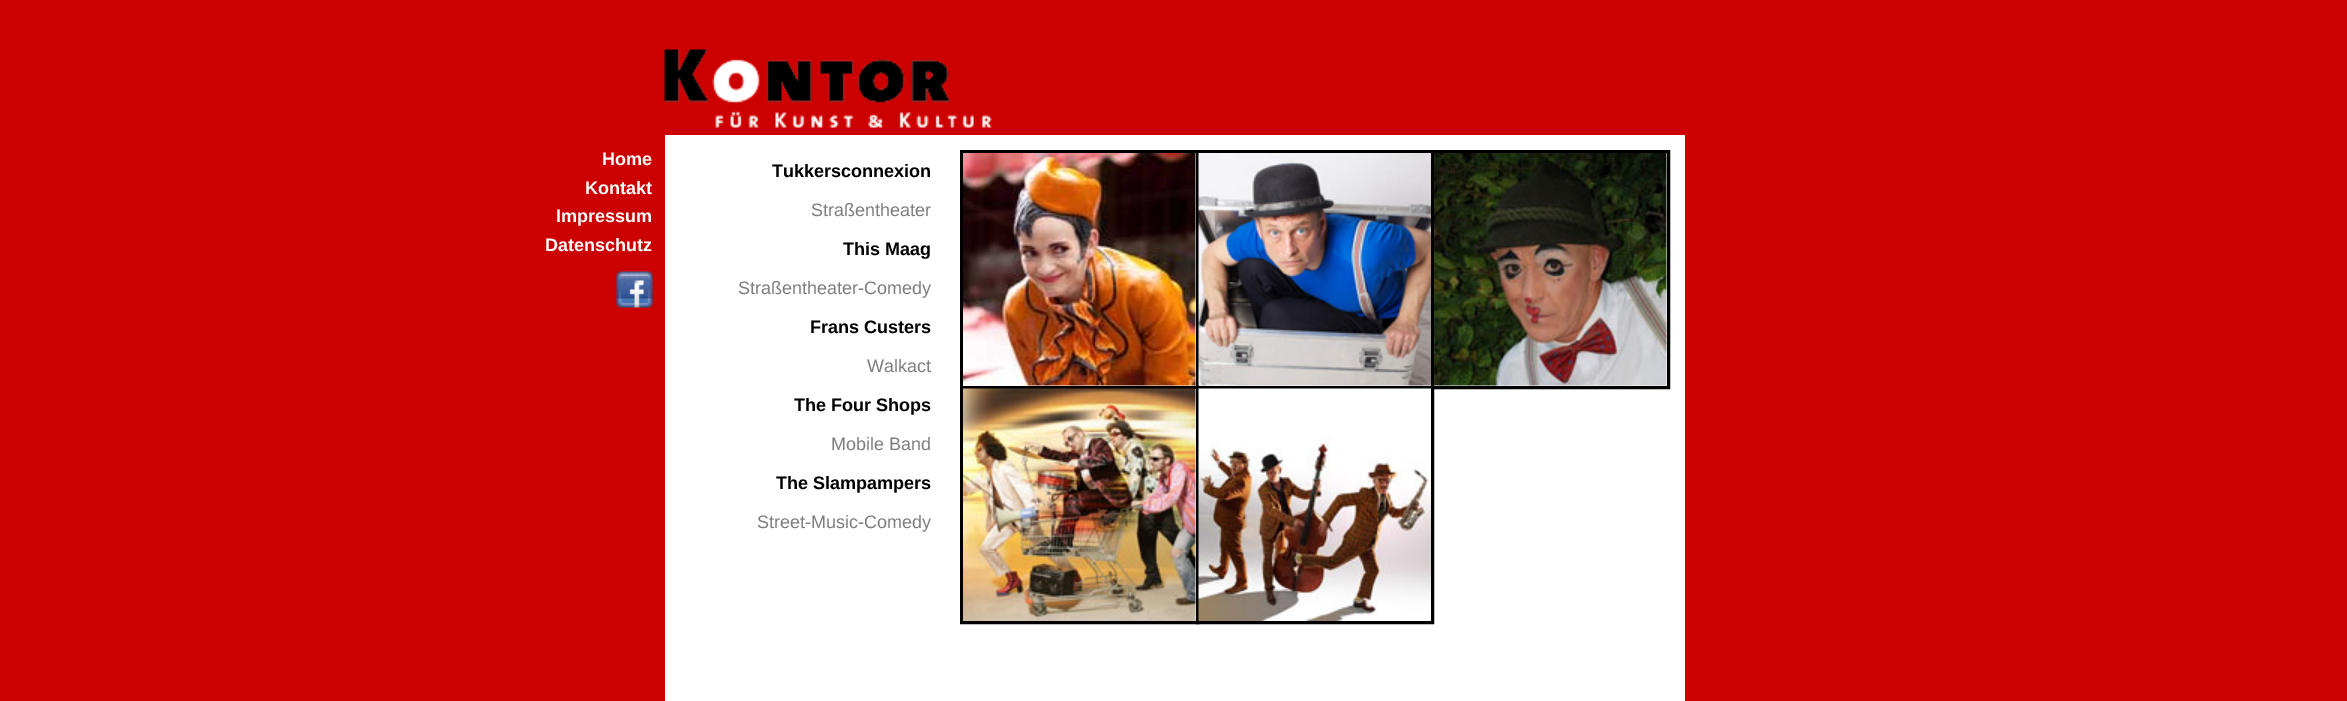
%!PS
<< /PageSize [2347 701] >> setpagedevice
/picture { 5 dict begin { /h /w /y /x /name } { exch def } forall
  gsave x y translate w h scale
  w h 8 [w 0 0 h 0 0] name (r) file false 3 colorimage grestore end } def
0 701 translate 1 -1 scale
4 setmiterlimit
0.8 0 0 setrgbcolor
0 0 2347 701 rectfill
(img1.rgb) 664 49 328 79 picture
/LiberationSans-Bold [18 0 0 -18 0 0] selectfont
1 setgray
602 165 moveto (Home) show
585 194 moveto (Kontakt) show
556 222 moveto (Impressum) show
545 251 moveto (Datenschutz) show
(img2.rgb) 616 271 37 37 picture
665 135 1020 566 rectfill
0 setgray
772 177 moveto (Tukkersconnexion) show
/LiberationSans-Regular [18 0 0 -18 0 0] selectfont
0.49 setgray
811 216 moveto (Straßentheater) show
/LiberationSans-Bold [18 0 0 -18 0 0] selectfont
0 setgray
843 255 moveto (This Maag) show
/LiberationSans-Regular [18 0 0 -18 0 0] selectfont
0.49 setgray
738 294 moveto (Straßentheater-Comedy) show
/LiberationSans-Bold [18 0 0 -18 0 0] selectfont
0 setgray
810 333 moveto (Frans Custers) show
/LiberationSans-Regular [18 0 0 -18 0 0] selectfont
0.49 setgray
867 372 moveto (Walkact) show
/LiberationSans-Bold [18 0 0 -18 0 0] selectfont
0 setgray
794 411 moveto (The Four Shops) show
/LiberationSans-Regular [18 0 0 -18 0 0] selectfont
0.49 setgray
831 450 moveto (Mobile Band) show
/LiberationSans-Bold [18 0 0 -18 0 0] selectfont
0 setgray
776 489 moveto (The Slampampers) show
/LiberationSans-Regular [18 0 0 -18 0 0] selectfont
0.49 setgray
757 528 moveto (Street-Music-Comedy) show
0 setgray
3 setlinewidth
961.5 151.5 236 236 rectstroke
(img3.rgb) 963 153 233 233 picture
1197.5 151.5 235 236 rectstroke
(img4.rgb) 1198 153 233 233 picture
1432.5 151.5 236 236 rectstroke
(img5.rgb) 1434 153 233 233 picture
961.5 387.5 236 235 rectstroke
(img6.rgb) 963 388 233 233 picture
1197.5 387.5 235 235 rectstroke
(img7.rgb) 1198 388 233 233 picture
showpage
